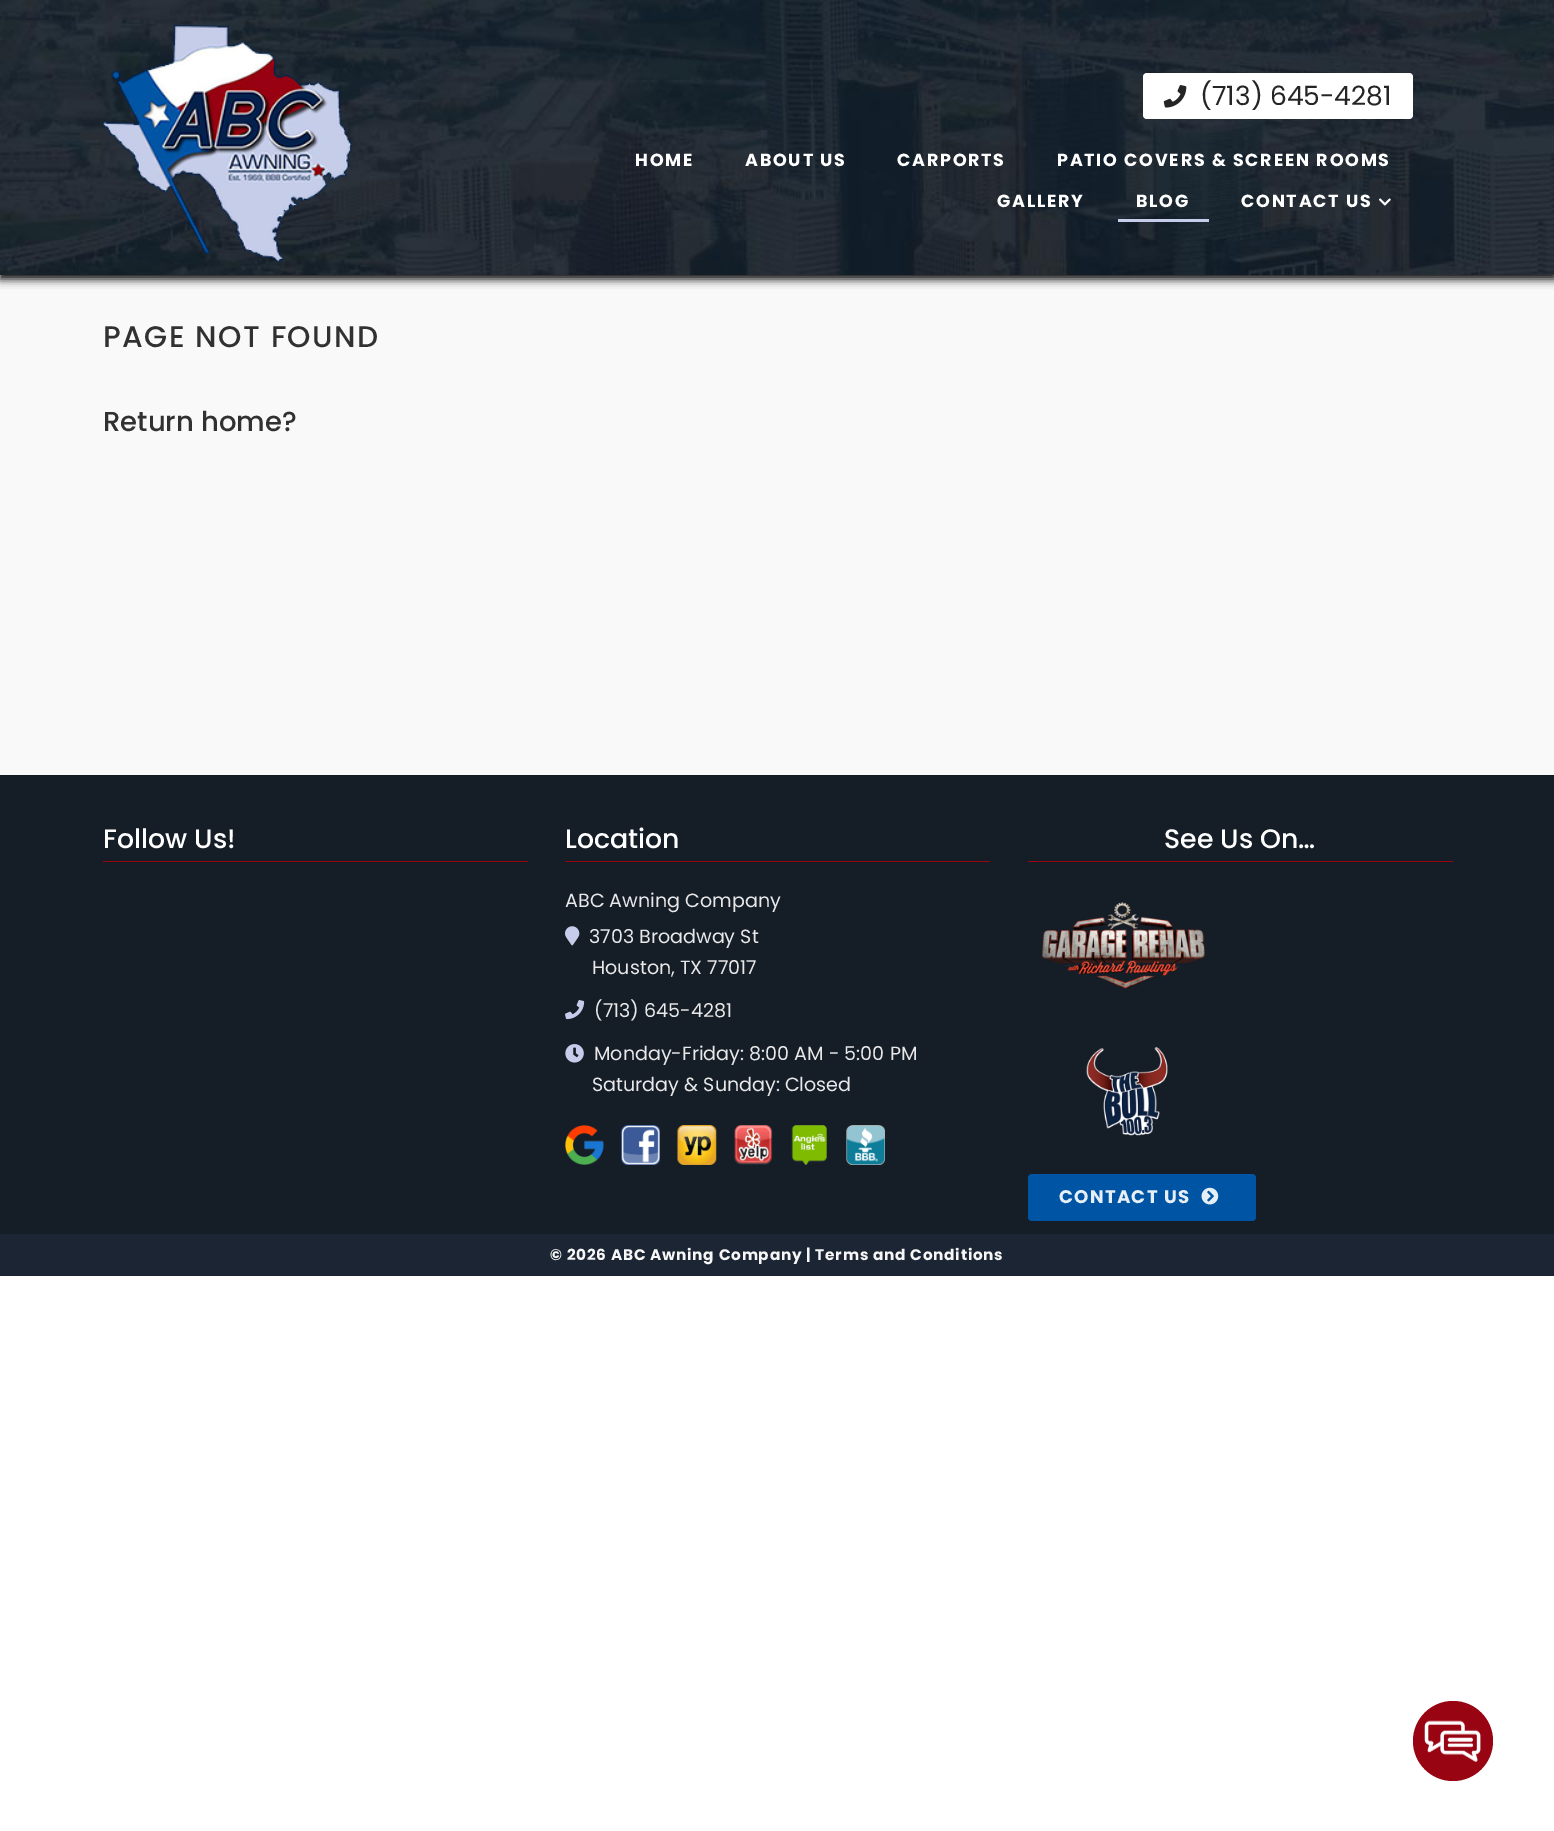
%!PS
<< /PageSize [1554 1831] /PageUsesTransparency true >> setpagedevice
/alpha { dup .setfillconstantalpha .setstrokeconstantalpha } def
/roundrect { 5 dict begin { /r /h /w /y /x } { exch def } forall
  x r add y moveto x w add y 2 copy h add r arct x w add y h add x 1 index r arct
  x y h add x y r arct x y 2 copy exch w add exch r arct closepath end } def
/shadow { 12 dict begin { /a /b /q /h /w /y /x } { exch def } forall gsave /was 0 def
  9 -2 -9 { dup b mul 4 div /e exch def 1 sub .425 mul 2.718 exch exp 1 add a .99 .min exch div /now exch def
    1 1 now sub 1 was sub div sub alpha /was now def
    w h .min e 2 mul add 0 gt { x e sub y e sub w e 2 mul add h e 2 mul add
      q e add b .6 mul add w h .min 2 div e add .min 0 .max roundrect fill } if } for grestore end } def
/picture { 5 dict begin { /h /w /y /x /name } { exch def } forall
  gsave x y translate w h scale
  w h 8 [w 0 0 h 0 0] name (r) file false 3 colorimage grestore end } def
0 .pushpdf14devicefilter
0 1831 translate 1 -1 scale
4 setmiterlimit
1 setgray
0 0 1554 1831 rectfill
0.976 setgray
0 275 1554 500 rectfill
0 setgray
0 4 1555 275 0 4.5 1 shadow
(img1.rgb) 0 0 1554 275 picture
(img2.rgb) 102 25 251 238 picture
1 setgray
1143 73 270 46 4 roundrect fill
(img3.rgb) 1163 85 24 23 picture
/Poppins-Regular [26.5 0 0 -26.5 0 0] selectfont
0.145 setgray
1200 105 moveto (\(713\) 645-4281) show
/Poppins-Bold [17.5 0 0 -17.5 0 0] selectfont
1 setgray
635 166 moveto 1.75 0 (HOME) ashow
745 166 moveto 1.75 0 (ABOUT US) ashow
897 166 moveto 1.75 0 (CARPORTS) ashow
1057 166 moveto 1.75 0 (PATIO COVERS & SCREEN ROOMS) ashow
997 207 moveto 1.75 0 (GALLERY) ashow
1136 207 moveto 1.75 0 (BLOG) ashow
0.776 0.804 0.918 setrgbcolor
1118 219 91 3 rectfill
1 setgray
1241 207 moveto 1.75 0 (CONTACT US) ashow
(img4.rgb) 1379 198 12 8 picture
/Poppins-Medium [29.75 0 0 -29.75 0 0] selectfont
0.192 setgray
103 347 moveto 1.5 0 (PAGE NOT FOUND) ashow
/Poppins-Medium [27.5 0 0 -27.5 0 0] selectfont
103 431 moveto (Return home?) show
0.082 0.114 0.153 setrgbcolor
0 776 1554 458 rectfill
0.071 0.098 0.129 setrgbcolor
0 775 1554 1 rectfill
0.596 0.016 0.063 setrgbcolor
103 861 425 1 rectfill
/Poppins-Medium [26.75 0 0 -26.75 0 0] selectfont
1 setgray
103 848 moveto (Follow Us!) show
0.596 0.016 0.063 setrgbcolor
565 861 425 1 rectfill
1 setgray
565 848 moveto (Location) show
/Poppins-Regular [19.1 0 0 -19.1 0 0] selectfont
0.91 0.91 0.914 setrgbcolor
565 907 moveto (ABC Awning Company) show
(img5.rgb) 565 926 15 20 picture
589 943 moveto (3703 Broadway St) show
592 974 moveto (Houston, TX 77017) show
(img6.rgb) 565 1000 20 20 picture
594 1017 moveto (\(713\) 645-4281) show
(img7.rgb) 565 1044 19 19 picture
594 1060 moveto (Monday-Friday: 8:00 AM - 5:00 PM) show
592 1091 moveto (Saturday & Sunday: Closed) show
(img8.rgb) 565 1125 39 40 picture
(img9.rgb) 621 1125 39 40 picture
(img10.rgb) 677 1125 40 40 picture
(img11.rgb) 734 1125 39 40 picture
(img12.rgb) 791 1125 36 40 picture
(img13.rgb) 846 1125 39 40 picture
0.596 0.016 0.063 setrgbcolor
1028 861 425 1 rectfill
/Poppins-Medium [26.75 0 0 -26.75 0 0] selectfont
1 setgray
1164 848 moveto (See Us On…) show
(img14.rgb) 1042 902 163 87 picture
(img15.rgb) 1086 1047 82 89 picture
0 0.329 0.643 setrgbcolor
1028 1174 228 47 4 roundrect fill
/Poppins-Bold [18.25 0 0 -18.25 0 0] selectfont
0.902 0.933 0.965 setrgbcolor
1059 1203 moveto 1.25 0 (CONTACT US) ashow
(img16.rgb) 1201 1187 18 18 picture
0.106 0.145 0.2 setrgbcolor
0 1234 1554 42 rectfill
/Poppins-Bold [15.3 0 0 -15.3 0 0] selectfont
0.969 setgray
550 1260 moveto 0.75 0 (© 2026 ABC Awning Company | Terms and Conditions) ashow
0.596 0.016 0.067 setrgbcolor
newpath 1453 1741 40 0 360 arc closepath fill
(img17.rgb) 1424 1720 57 42 picture
.poppdf14devicefilter showpage
